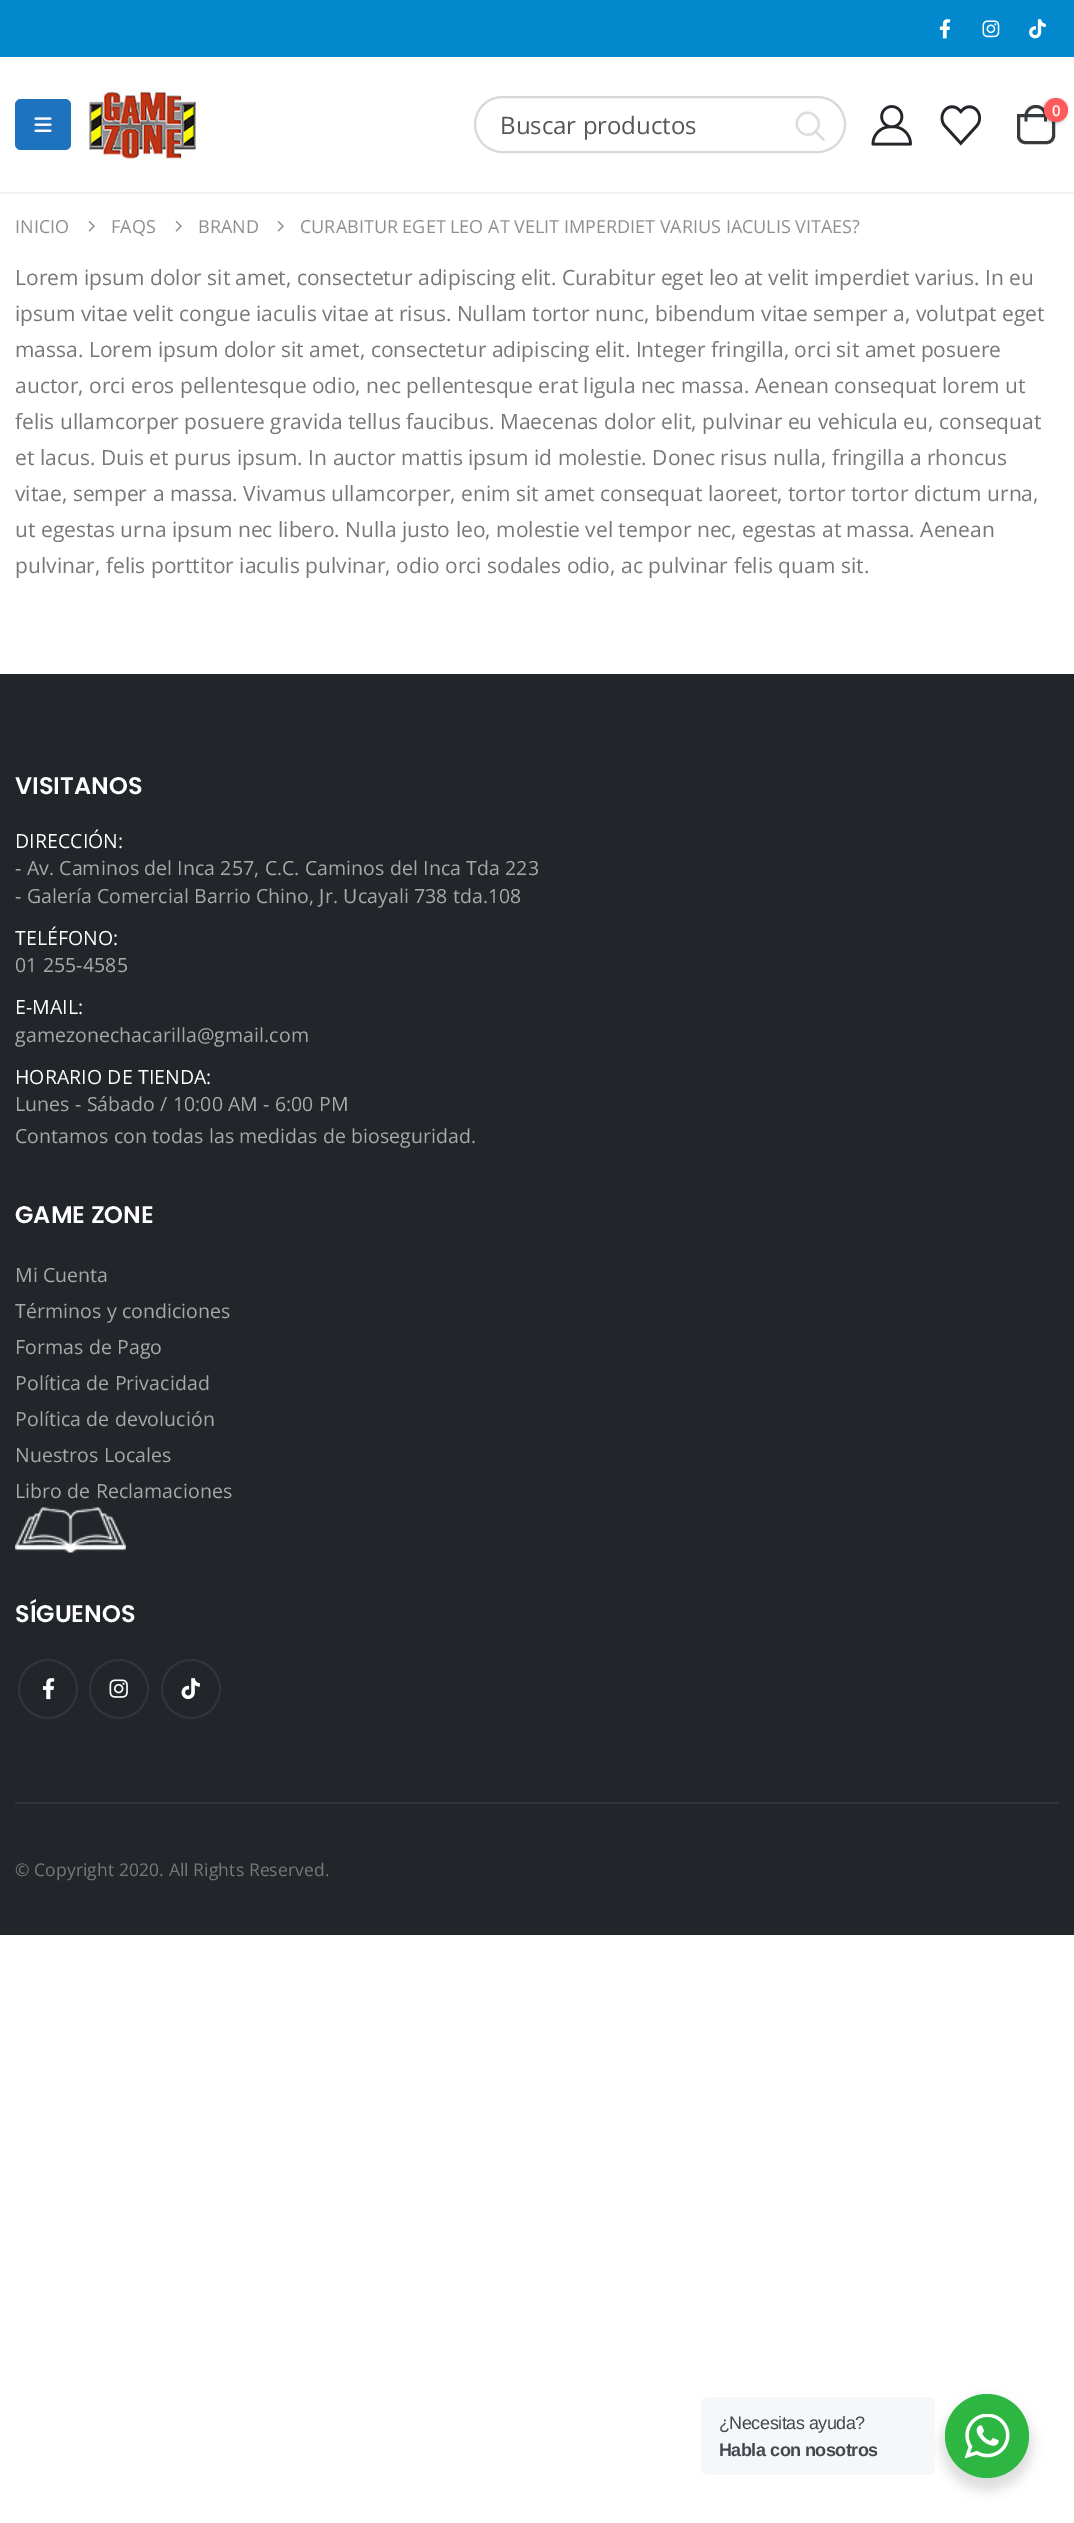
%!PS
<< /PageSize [1074 2523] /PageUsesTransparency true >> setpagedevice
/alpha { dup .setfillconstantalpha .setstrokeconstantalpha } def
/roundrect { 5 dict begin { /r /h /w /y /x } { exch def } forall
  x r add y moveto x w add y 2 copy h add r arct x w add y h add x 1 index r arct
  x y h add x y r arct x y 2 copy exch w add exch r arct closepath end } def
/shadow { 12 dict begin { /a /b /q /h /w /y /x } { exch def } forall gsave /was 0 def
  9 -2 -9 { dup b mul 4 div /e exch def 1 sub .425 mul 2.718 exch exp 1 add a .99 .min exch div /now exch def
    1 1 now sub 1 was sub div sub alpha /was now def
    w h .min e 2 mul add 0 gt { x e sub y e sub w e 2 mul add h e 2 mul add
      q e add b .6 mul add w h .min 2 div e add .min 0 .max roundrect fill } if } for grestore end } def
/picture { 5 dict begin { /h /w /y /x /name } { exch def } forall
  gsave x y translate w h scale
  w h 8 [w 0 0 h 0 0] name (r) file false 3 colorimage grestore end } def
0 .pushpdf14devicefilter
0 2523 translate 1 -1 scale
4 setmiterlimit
1 setgray
0 0 1074 2523 rectfill
0.957 setgray
0 192 1074 2 rectfill
0.008 0.537 0.804 setrgbcolor
0 0 1074 57 rectfill
(img1.rgb) 939 19 12 20 picture
(img2.rgb) 982 20 18 18 picture
(img3.rgb) 1029 19 17 20 picture
0.118 0.451 0.745 setrgbcolor
15 99 56 51 6 roundrect fill
(img4.rgb) 34 117 18 15 picture
(img5.rgb) 87 88 113 72 picture
(img6.rgb) 871 105 41 41 picture
(img7.rgb) 940 105 41 41 picture
0.22 0.231 0.243 setrgbcolor
3 setlinewidth
newpath 1018.5 115.5 moveto 1053.5 115.5 lineto 1053.5 136 lineto 1053.5 139.5 1050.5 142.5 1047 142.5 curveto 1025 142.5 lineto 1021.5 142.5 1018.5 139.5 1018.5 136 curveto closepath stroke
newpath 1036 105 moveto 1042 105 1047 110 1047 116 curveto 1047 121.5 lineto 1024.5 121.5 lineto 1024.5 116 lineto 1024.5 110 1029.5 105 1036 105 curveto closepath 1036 108 moveto 1040.5 108 1044 111.5 1044 116 curveto 1044 121.5 lineto 1027.5 121.5 lineto 1027.5 116 lineto 1027.5 111.5 1031 108 1036 108 curveto closepath eofill
0 setgray
1043 99 24 24 12 1.5 0.3 shadow
1 0.357 0.357 setrgbcolor
newpath 1056 110 12 0 360 arc closepath fill
/OpenSans-SemiBold [15 0 0 -15 0 0] selectfont
1 setgray
1052 116 moveto (0) show
0.847 setgray
2 setlinewidth
475 97 370 55 27.5 roundrect stroke
/OpenSans-Regular [24 0 0 -24 0 0] selectfont
0.341 setgray
500 134 moveto (Buscar productos) show
0.863 setgray
2.2 setlinewidth
1 setlinecap
1 setlinejoin
newpath 823.5 139.5 moveto 815.5 131.5 lineto 815.5 131.5 moveto 826 121.5 810 105.5 800 116 curveto 789.5 126 805.5 142 815.5 131.5 curveto closepath stroke
/OpenSans-Regular [18 0 0 -18 0 0] selectfont
0.557 setgray
15 233 moveto (INICIO) show
(img8.rgb) 88 220 7 12 picture
111 233 moveto (FAQS) show
(img8.rgb) 175 220 7 12 picture
198 233 moveto (BRAND) show
(img8.rgb) 277 220 7 12 picture
300 233 moveto (CURABITUR EGET LEO AT VELIT IMPERDIET VARIUS IACULIS VITAES?) show
/OpenSans-Regular [21 0 0 -21 0 0] selectfont
0.467 setgray
15 285 moveto (Lorem ipsum dolor sit amet, consectetur adipiscing elit. Curabitur eget leo at velit imperdiet varius. In eu) show
15 321 moveto (ipsum vitae velit congue iaculis vitae at risus. Nullam tortor nunc, bibendum vitae semper a, volutpat eget) show
15 357 moveto (massa. Lorem ipsum dolor sit amet, consectetur adipiscing elit. Integer fringilla, orci sit amet posuere) show
15 393 moveto (auctor, orci eros pellentesque odio, nec pellentesque erat ligula nec massa. Aenean consequat lorem ut) show
15 429 moveto (felis ullamcorper posuere gravida tellus faucibus. Maecenas dolor elit, pulvinar eu vehicula eu, consequat) show
15 465 moveto (et lacus. Duis et purus ipsum. In auctor mattis ipsum id molestie. Donec risus nulla, fringilla a rhoncus) show
15 501 moveto (vitae, semper a massa. Vivamus ullamcorper, enim sit amet consequat laoreet, tortor tortor dictum urna,) show
15 537 moveto (ut egestas urna ipsum nec libero. Nulla justo leo, molestie vel tempor nec, egestas at massa. Aenean) show
15 573 moveto (pulvinar, felis porttitor iaculis pulvinar, odio orci sodales odio, ac pulvinar felis quam sit.) show
0.133 0.145 0.161 setrgbcolor
0 674 1074 1261 rectfill
/Poppins-SemiBold [24 0 0 -24 0 0] selectfont
1 setgray
15 794 moveto (VISITANOS) show
/OpenSans-Regular [19.5 0 0 -19.5 0 0] selectfont
15 848 moveto 0.1 0 (DIRECCIÓN:) ashow
0.659 setgray
15 875 moveto 0.1 0 (- Av. Caminos del Inca 257, C.C. Caminos del Inca Tda 223) ashow
15 903 moveto 0.1 0 (- Galería Comercial Barrio Chino, Jr. Ucayali 738 tda.108) ashow
1 setgray
15 945 moveto 0.1 0 (TELÉFONO:) ashow
0.659 setgray
15 972 moveto 0.1 0 (01 255-4585) ashow
1 setgray
15 1014 moveto 0.1 0 (E-MAIL:) ashow
0.659 setgray
15 1042 moveto 0.1 0 (gamezonechacarilla@gmail.com) ashow
1 setgray
15 1084 moveto 0.1 0 (HORARIO DE TIENDA:) ashow
0.659 setgray
15 1111 moveto 0.1 0 (Lunes - Sábado / 10:00 AM - 6:00 PM) ashow
15 1143 moveto 0.1 0 (Contamos con todas las medidas de bioseguridad.) ashow
/Poppins-SemiBold [24 0 0 -24 0 0] selectfont
1 setgray
15 1223 moveto (GAME ZONE) show
/OpenSans-Regular [19.5 0 0 -19.5 0 0] selectfont
0.659 setgray
15 1282 moveto 0.1 0 (Mi Cuenta) ashow
15 1318 moveto 0.1 0 (Términos y condiciones) ashow
15 1354 moveto 0.1 0 (Formas de Pago) ashow
15 1390 moveto 0.1 0 (Política de Privacidad) ashow
15 1426 moveto 0.1 0 (Política de devolución) ashow
15 1462 moveto 0.1 0 (Nuestros Locales) ashow
15 1498 moveto 0.1 0 (Libro de Reclamaciones) ashow
(img9.rgb) 15 1507 111 46 picture
/Poppins-SemiBold [24 0 0 -24 0 0] selectfont
1 setgray
15 1622 moveto (SÍGUENOS) show
0.192 0.204 0.22 setrgbcolor
2 setlinewidth
0 setlinecap
0 setlinejoin
newpath 48 1689 29 0 360 arc closepath stroke
(img10.rgb) 42 1678 13 22 picture
newpath 119 1689 29 0 360 arc closepath stroke
(img11.rgb) 109 1679 19 19 picture
newpath 191 1689 29 0 360 arc closepath stroke
(img12.rgb) 181 1678 19 22 picture
15 1802 1044 2 rectfill
/OpenSans-Regular [17.5 0 0 -17.5 0 0] selectfont
0.467 setgray
15 1876 moveto 0.1 0 (© Copyright 2020. All Rights Reserved.) ashow
0 setgray
942 2400 90 90 45 6 0.14 shadow
0.961 0.969 0.976 setrgbcolor
701 2397 234 78 6 roundrect fill
/LiberationSans-Regular [18 0 0 -18 0 0] selectfont
0.263 0.278 0.306 setrgbcolor
719 2429 moveto -0.5 0 (¿Necesitas ayuda?) ashow
/LiberationSans-Bold [18 0 0 -18 0 0] selectfont
719 2456 moveto -0.5 0 (Habla con nosotros) ashow
0.176 0.718 0.259 setrgbcolor
newpath 987 2436 42 0 360 arc closepath fill
(img13.rgb) 965 2414 45 45 picture
.poppdf14devicefilter showpage
